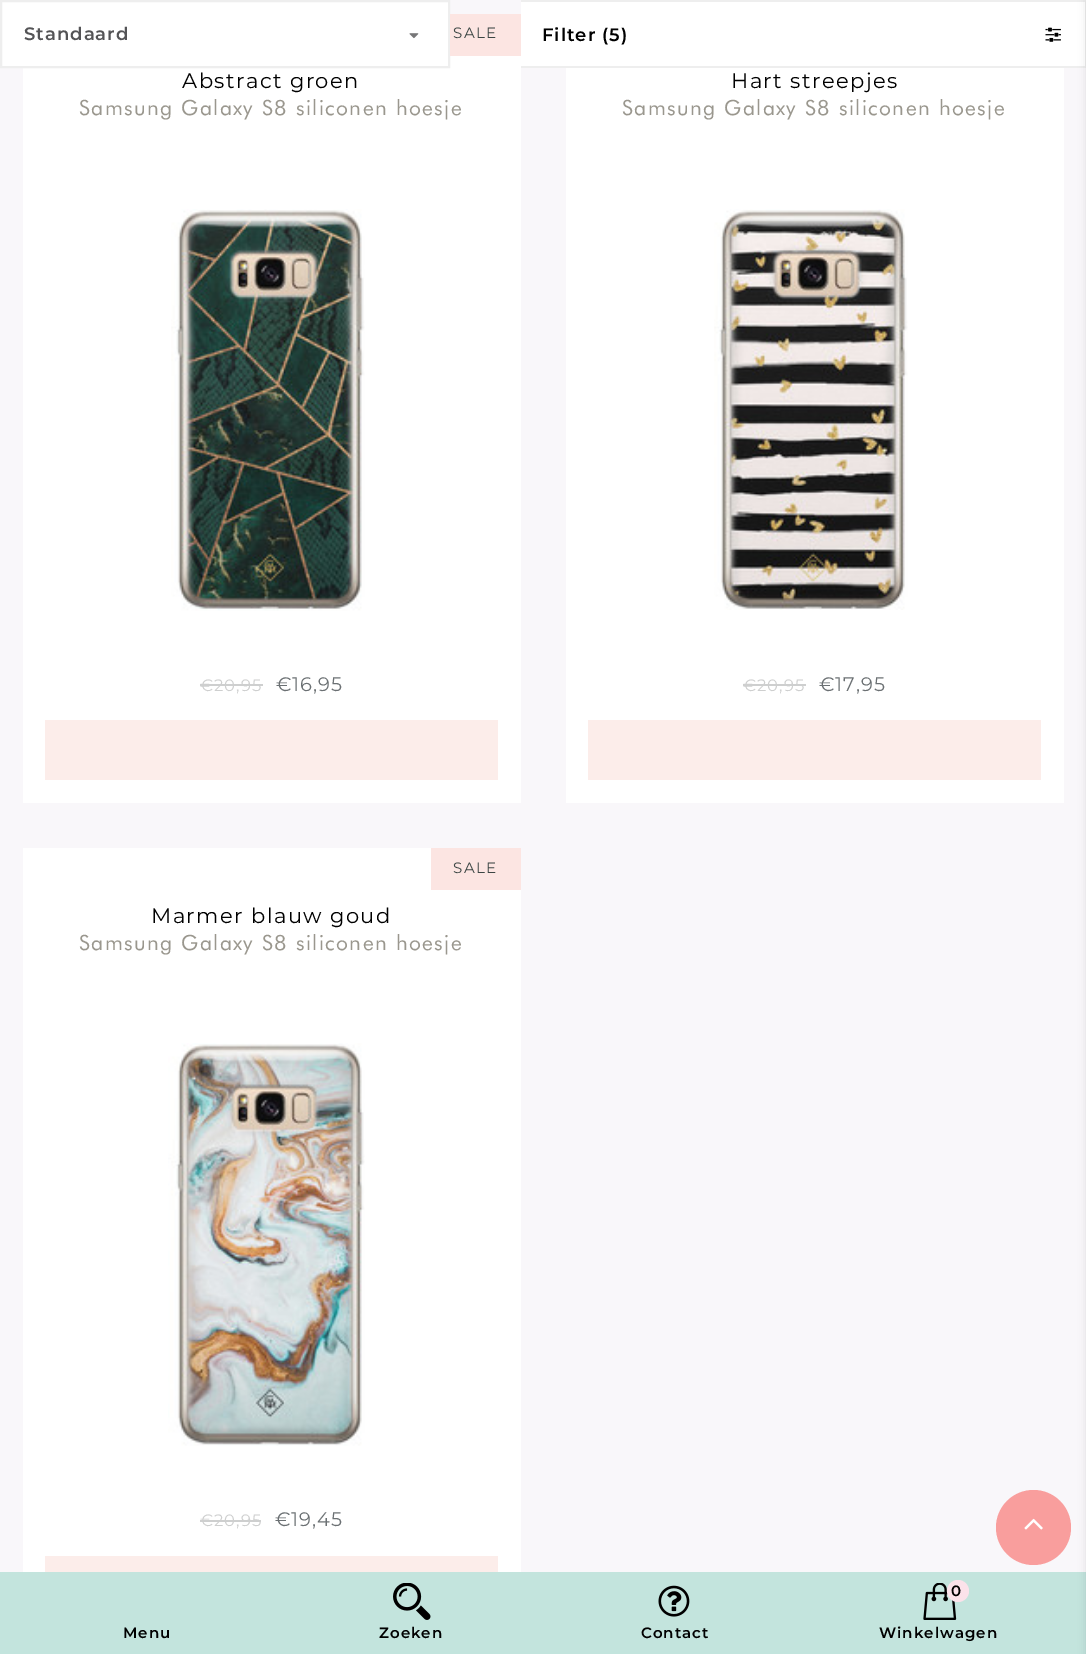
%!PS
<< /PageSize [1086 1654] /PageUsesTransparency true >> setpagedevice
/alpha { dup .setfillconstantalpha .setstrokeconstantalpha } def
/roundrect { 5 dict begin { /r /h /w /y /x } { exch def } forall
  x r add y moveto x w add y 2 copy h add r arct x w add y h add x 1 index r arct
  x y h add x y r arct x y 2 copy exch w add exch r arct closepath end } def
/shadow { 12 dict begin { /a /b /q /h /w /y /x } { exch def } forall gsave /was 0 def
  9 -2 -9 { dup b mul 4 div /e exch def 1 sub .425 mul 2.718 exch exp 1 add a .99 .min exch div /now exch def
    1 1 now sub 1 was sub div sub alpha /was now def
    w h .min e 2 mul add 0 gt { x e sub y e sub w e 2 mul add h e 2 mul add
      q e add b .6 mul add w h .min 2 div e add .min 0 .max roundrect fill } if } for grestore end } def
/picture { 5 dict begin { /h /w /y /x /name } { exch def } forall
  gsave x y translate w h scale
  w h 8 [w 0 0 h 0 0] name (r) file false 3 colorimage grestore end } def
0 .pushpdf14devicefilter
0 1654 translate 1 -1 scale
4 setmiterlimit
0.976 0.969 0.98 setrgbcolor
0 0 1086 1654 rectfill
1 setgray
23 56 498 747 rectfill
newpath 1 1 moveto 449 1 lineto 449 67 lineto 1 67 lineto closepath gsave fill grestore
0.933 setgray
2 setlinewidth
stroke
/Montserrat-SemiBold [18 0 0 -18 0 0] selectfont
0.329 0.329 0.337 setrgbcolor
24 40 moveto 1 0 (Standaard) ashow
(img1.rgb) 409 33 10 6 picture
1 setgray
521 2 564 64 rectfill
0.933 setgray
521 0 565 2 rectfill
1085 0 1 68 rectfill
521 66 565 2 rectfill
0 setgray
542 41 moveto 1 0 (Filter \(5\)) ashow
(img2.rgb) 1045 27 16 15 picture
0.988 0.898 0.886 setrgbcolor
450 14 71 42 rectfill
/Montserrat-Regular [15 0 0 -15 0 0] selectfont
0.235 0.275 0.267 setrgbcolor
453 38 moveto 1.5 0 (SALE) ashow
/Montserrat-Regular [21 0 0 -21 0 0] selectfont
0 setgray
182 88 moveto 1.45 0 (Abstract groen) ashow
/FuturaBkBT-Regular [21 0 0 -21 0 0] selectfont
0.604 0.592 0.557 setrgbcolor
79 115 moveto 1.45 0 (Samsung Galaxy S8 siliconen hoesje) ashow
(img3.rgb) 171 209 194 402 picture
/Montserrat-Regular [16.5 0 0 -16.5 0 0] selectfont
0.808 0.812 0.812 setrgbcolor
200 691 moveto 1 0 (€20,95) ashow
200 684 63 2 rectfill
/Montserrat-Regular [19.5 0 0 -19.5 0 0] selectfont
0.42 0.439 0.451 setrgbcolor
276 691 moveto 1 0 (€16,95) ashow
0.988 0.929 0.918 setrgbcolor
45 720 453 60 rectfill
1 setgray
566 68 498 735 rectfill
/Montserrat-Regular [21 0 0 -21 0 0] selectfont
0 setgray
731 88 moveto 1.45 0 (Hart streepjes) ashow
/FuturaBkBT-Regular [21 0 0 -21 0 0] selectfont
0.604 0.592 0.557 setrgbcolor
622 115 moveto 1.45 0 (Samsung Galaxy S8 siliconen hoesje) ashow
(img4.rgb) 714 209 194 401 picture
/Montserrat-Regular [16.5 0 0 -16.5 0 0] selectfont
0.808 0.812 0.812 setrgbcolor
743 691 moveto 1 0 (€20,95) ashow
743 684 63 2 rectfill
/Montserrat-Regular [19.5 0 0 -19.5 0 0] selectfont
0.42 0.439 0.451 setrgbcolor
819 691 moveto 1 0 (€17,95) ashow
0.988 0.929 0.918 setrgbcolor
588 720 453 60 rectfill
1 setgray
23 848 498 724 rectfill
0.988 0.898 0.886 setrgbcolor
431 848 90 42 rectfill
/Montserrat-Regular [15 0 0 -15 0 0] selectfont
0.235 0.275 0.267 setrgbcolor
453 873 moveto 1.5 0 (SALE) ashow
/Montserrat-Regular [21 0 0 -21 0 0] selectfont
0 setgray
151 923 moveto 1.45 0 (Marmer blauw goud) ashow
/FuturaBkBT-Regular [21 0 0 -21 0 0] selectfont
0.604 0.592 0.557 setrgbcolor
79 950 moveto 1.45 0 (Samsung Galaxy S8 siliconen hoesje) ashow
(img5.rgb) 168 1043 197 403 picture
/Montserrat-Regular [16.5 0 0 -16.5 0 0] selectfont
0.808 0.812 0.812 setrgbcolor
200 1526 moveto 1 0 (€20,95) ashow
200 1520 61 2 rectfill
/Montserrat-Regular [19.5 0 0 -19.5 0 0] selectfont
0.42 0.439 0.451 setrgbcolor
275 1526 moveto 1 0 (€19,45) ashow
0.988 0.929 0.918 setrgbcolor
45 1556 453 16 rectfill
0.765 0.894 0.867 setrgbcolor
0 1572 1086 82 rectfill
0 setgray
1086 0 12 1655 0 4 0.1 shadow
0.976 0.62 0.616 setrgbcolor
newpath 1033.5 1527.5 37.5 0 360 arc closepath fill
(img6.rgb) 1024 1518 19 12 picture
/Montserrat-SemiBold [15 0 0 -15 0 0] selectfont
0 setgray
123 1638 moveto 1 0 (Menu) ashow
(img7.rgb) 393 1583 38 37 picture
379 1638 moveto 1 0 (Zoeken) ashow
(img8.rgb) 658 1585 32 32 picture
641 1638 moveto 1 0 (Contact) ashow
(img9.rgb) 923 1583 34 37 picture
0.984 0.886 0.918 setrgbcolor
newpath 958 1591 11 0 360 arc closepath fill
0 setgray
951 1596 moveto 1 0 (0) ashow
879 1638 moveto 1 0 (Winkelwagen) ashow
.poppdf14devicefilter showpage
